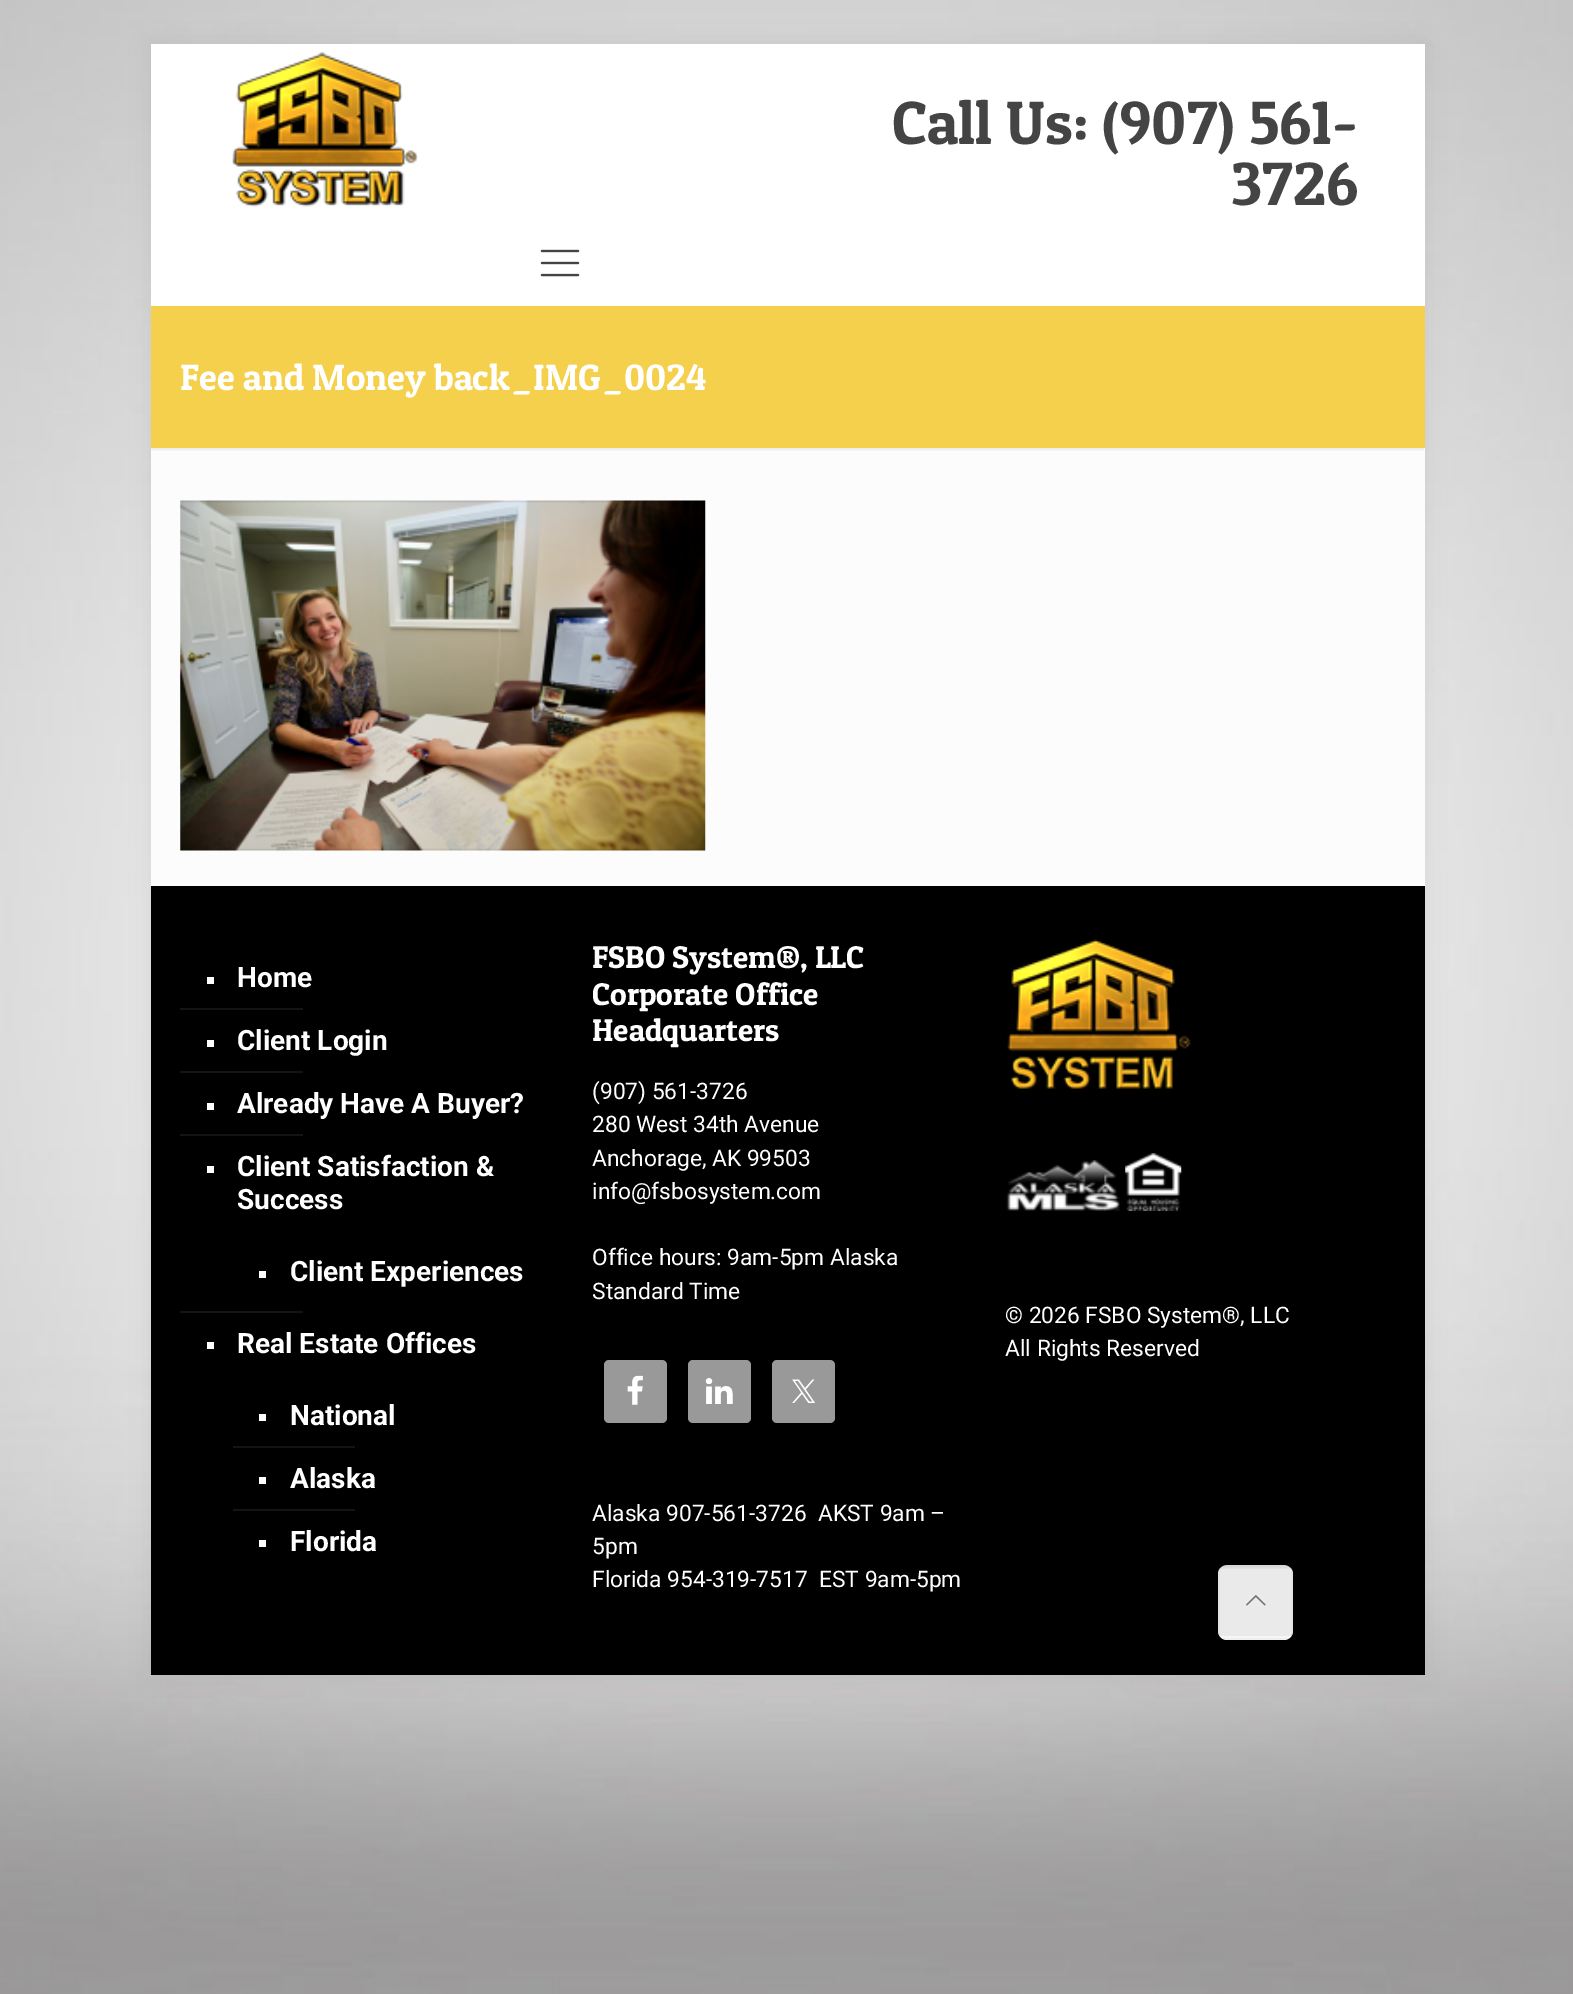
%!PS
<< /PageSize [1573 1994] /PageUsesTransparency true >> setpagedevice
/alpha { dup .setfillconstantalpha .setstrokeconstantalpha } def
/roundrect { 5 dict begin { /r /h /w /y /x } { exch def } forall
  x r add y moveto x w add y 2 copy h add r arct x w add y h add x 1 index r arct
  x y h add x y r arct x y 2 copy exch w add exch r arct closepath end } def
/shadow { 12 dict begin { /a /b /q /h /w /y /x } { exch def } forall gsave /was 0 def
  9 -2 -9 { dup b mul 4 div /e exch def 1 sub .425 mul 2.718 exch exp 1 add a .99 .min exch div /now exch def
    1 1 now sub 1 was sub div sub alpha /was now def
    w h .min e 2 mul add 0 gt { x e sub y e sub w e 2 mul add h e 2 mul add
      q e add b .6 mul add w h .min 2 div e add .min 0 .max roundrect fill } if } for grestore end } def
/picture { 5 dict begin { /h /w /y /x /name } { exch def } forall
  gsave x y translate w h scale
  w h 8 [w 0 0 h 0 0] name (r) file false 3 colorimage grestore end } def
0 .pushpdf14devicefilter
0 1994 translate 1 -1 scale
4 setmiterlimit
1 setgray
0 0 1573 1994 rectfill
(img1.rgb) 0 0 1573 1994 picture
0 setgray
151 44 1274 1631 0 13 0.06 shadow
0.988 setgray
151 448 1274 438 rectfill
0.961 0.816 0.298 setrgbcolor
151 306 1274 142 rectfill
1 setgray
151 44 1274 262 rectfill
(img2.rgb) 232 52 186 155 picture
/PatuaOne-Regular [61.25 0 0 -61.25 0 0] selectfont
0.267 setgray
892 144 moveto (Call Us: \(907\) 561-) show
1231 205 moveto (3726) show
(img3.rgb) 540 249 40 28 picture
/PatuaOne-Regular [36.75 0 0 -36.75 0 0] selectfont
1 setgray
180 390 moveto (Fee and Money back_IMG_0024) show
(img4.rgb) 151 448 1273 3 picture
(img5.rgb) 180 500 526 351 picture
0 setgray
151 886 1274 789 rectfill
1 setgray
207 977 7 7 rectfill
/Roboto-Bold [28 0 0 -28 0 0] selectfont
237 987 moveto (Home) show
0.078 setgray
180 1008 123 2 rectfill
1 setgray
207 1040 7 7 rectfill
237 1050 moveto (Client Login) show
0.078 setgray
180 1071 123 2 rectfill
1 setgray
207 1103 7 7 rectfill
237 1113 moveto (Already Have A Buyer?) show
0.078 setgray
180 1134 123 2 rectfill
1 setgray
207 1166 7 7 rectfill
237 1176 moveto (Client Satisfaction &) show
237 1209 moveto (Success) show
259 1271 7 7 rectfill
290 1281 moveto (Client Experiences) show
0.078 setgray
180 1311 123 2 rectfill
1 setgray
207 1342 7 7 rectfill
237 1353 moveto (Real Estate Offices) show
259 1414 7 7 rectfill
290 1425 moveto (National) show
0.078 setgray
233 1446 122 2 rectfill
1 setgray
259 1477 7 7 rectfill
290 1488 moveto (Alaska) show
0.078 setgray
233 1509 122 2 rectfill
1 setgray
259 1540 7 7 rectfill
290 1551 moveto (Florida) show
/PatuaOne-Regular [31.5 0 0 -31.5 0 0] selectfont
592 968 moveto (FSBO System®, LLC) show
592 1005 moveto (Corporate Office) show
592 1041 moveto (Headquarters) show
/Roboto-Regular [22.75 0 0 -22.75 0 0] selectfont
592 1099 moveto (\(907\) 561-3726) show
592 1132 moveto (280 West 34th Avenue) show
592 1166 moveto (Anchorage, AK 99503) show
592 1199 moveto (info@fsbosystem.com) show
592 1265 moveto (Office hours: 9am-5pm Alaska) show
592 1299 moveto (Standard Time) show
0.6 setgray
604 1360 63 63 5 roundrect fill
(img6.rgb) 627 1375 16 30 picture
688 1360 63 63 5 roundrect fill
(img7.rgb) 705 1378 28 26 picture
772 1360 63 63 5 roundrect fill
(img8.rgb) 792 1379 23 24 picture
1 setgray
592 1521 moveto (Alaska 907-561-3726  AKST 9am –) show
592 1554 moveto (5pm) show
592 1587 moveto (Florida 954-319-7517  EST 9am-5pm) show
(img9.rgb) 1007 939 184 150 picture
(img10.rgb) 1006 1160 114 51 picture
(img11.rgb) 1125 1153 57 58 picture
1005 1323 moveto (© 2026 FSBO System®, LLC) show
1005 1356 moveto (All Rights Reserved) show
0.969 setgray
1218 1565 75 75 9 roundrect fill
(img12.rgb) 1220 1565 71 4 picture
0.03 alpha
0 setgray
2 setlinewidth
1219 1566 73 73 rectstroke
0.05 alpha
1218 1565 75 71 rectfill
1 alpha
(img13.rgb) 1246 1595 20 11 picture
.poppdf14devicefilter showpage
